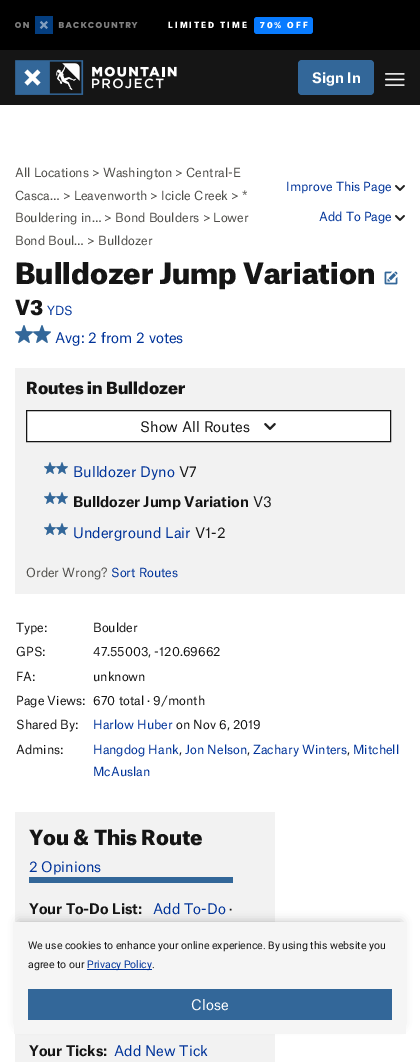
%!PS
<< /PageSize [420 1062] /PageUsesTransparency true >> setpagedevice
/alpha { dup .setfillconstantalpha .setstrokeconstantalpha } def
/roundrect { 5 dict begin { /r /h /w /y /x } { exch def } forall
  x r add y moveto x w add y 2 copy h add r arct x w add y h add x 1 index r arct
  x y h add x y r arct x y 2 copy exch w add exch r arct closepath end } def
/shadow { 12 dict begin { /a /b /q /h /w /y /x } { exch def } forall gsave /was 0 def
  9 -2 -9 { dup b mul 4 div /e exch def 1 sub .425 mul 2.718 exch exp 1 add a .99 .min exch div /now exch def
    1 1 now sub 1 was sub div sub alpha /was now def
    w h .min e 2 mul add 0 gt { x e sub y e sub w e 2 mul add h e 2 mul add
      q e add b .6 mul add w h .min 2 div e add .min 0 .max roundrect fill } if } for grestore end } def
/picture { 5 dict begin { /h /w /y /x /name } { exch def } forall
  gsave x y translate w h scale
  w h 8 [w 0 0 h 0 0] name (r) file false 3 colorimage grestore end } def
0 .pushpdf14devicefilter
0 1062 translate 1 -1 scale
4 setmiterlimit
1 setgray
0 0 420 1062 rectfill
0.082 setgray
0 50 420 55 rectfill
0 setgray
0 0 420 50 rectfill
(img1.rgb) 15 16 123 18 picture
/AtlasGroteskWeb-Black [8 0 0 -8 0 0] selectfont
1 setgray
168 28 moveto 2 0 (LIMITED TIME) ashow
0.031 0.482 1 setrgbcolor
254 17 59 17 3 roundrect fill
1 setgray
260 28 moveto 2 0 (70% OFF) ashow
(img2.rgb) 15 60 162 35 picture
0.2 0.404 0.6 setrgbcolor
298 60 76 35 4 roundrect fill
/AtlasGroteskWeb-Bold [14 0 0 -14 0 0] selectfont
1 setgray
312 83 moveto (Sign In) show
(img3.rgb) 385 73 20 13 picture
/AtlasGroteskWeb-Regular [12 0 0 -12 0 0] selectfont
0.306 0.302 0.286 setrgbcolor
15 177 moveto (All Locations > Washington > Central-E) show
15 200 moveto (Casca… > Leavenworth > Icicle Creek > *) show
15 222 moveto (Bouldering in… > Bond Boulders > Lower) show
15 245 moveto (Bond Boul… > Bulldozer) show
0 0.2 0.6 setrgbcolor
286 191 moveto (Improve This Page) show
(img4.rgb) 395 185 10 6 picture
319 221 moveto (Add To Page) show
(img4.rgb) 395 215 10 6 picture
/AtlasGroteskWeb-Black [28 0 0 -28 0 0] selectfont
0.082 setgray
15 284 moveto (Bulldozer Jump Variation) show
(img5.rgb) 384 271 14 14 picture
/AtlasGroteskWeb-Black [20 0 0 -20 0 0] selectfont
15 315 moveto (V3) show
/AtlasGroteskWeb-Regular [12 0 0 -12 0 0] selectfont
0 0.2 0.6 setrgbcolor
47 315 moveto (YDS) show
(img6.rgb) 15 325 18 18 picture
(img6.rgb) 33 325 18 18 picture
/AtlasGroteskWeb-Regular [14 0 0 -14 0 0] selectfont
55 343 moveto (Avg: 2 from 2 votes) show
0.949 setgray
15 368 390 226 rectfill
/AtlasGroteskWeb-Black [16 0 0 -16 0 0] selectfont
0.082 setgray
26 394 moveto (Routes in Bulldozer) show
1 setgray
newpath 26.5 410.5 moveto 390.5 410.5 lineto 390.5 441.5 lineto 26.5 441.5 lineto closepath gsave fill grestore
0.082 setgray
stroke
/AtlasGroteskWeb-Regular [14 0 0 -14 0 0] selectfont
140 432 moveto (Show All Routes) show
(img7.rgb) 264 423 12 7 picture
(img8.rgb) 44 462 12 12 picture
(img8.rgb) 56 462 12 12 picture
0 0.2 0.6 setrgbcolor
73 477 moveto (Bulldozer Dyno) show
0.082 setgray
179 477 moveto (V7) show
(img8.rgb) 44 492 12 12 picture
(img8.rgb) 56 492 12 12 picture
/AtlasGroteskWeb-Bold [14 0 0 -14 0 0] selectfont
73 507 moveto (Bulldozer Jump Variation) show
/AtlasGroteskWeb-Regular [14 0 0 -14 0 0] selectfont
253 507 moveto (V3) show
(img8.rgb) 44 523 12 12 picture
(img8.rgb) 56 523 12 12 picture
0 0.2 0.6 setrgbcolor
73 538 moveto (Underground Lair) show
0.082 setgray
195 538 moveto (V1-2) show
/AtlasGroteskWeb-Regular [12 0 0 -12 0 0] selectfont
0.306 0.302 0.286 setrgbcolor
26 577 moveto (Order Wrong?) show
0 0.2 0.6 setrgbcolor
111 577 moveto (Sort Routes) show
0.082 setgray
16 632 moveto (Type:) show
93 632 moveto (Boulder) show
16 656 moveto (GPS:) show
93 656 moveto (47.55003, -120.69662) show
16 681 moveto (FA:) show
93 681 moveto (unknown) show
16 705 moveto (Page Views:) show
93 705 moveto (670 total · 9/month) show
16 729 moveto (Shared By:) show
0 0.2 0.6 setrgbcolor
93 729 moveto (Harlow Huber) show
0.082 setgray
176 729 moveto (on Nov 6, 2019) show
16 754 moveto (Admins:) show
0 0.2 0.6 setrgbcolor
93 754 moveto (Hangdog Hank) show
0.082 setgray
179 754 moveto (,) show
0 0.2 0.6 setrgbcolor
185 754 moveto (Jon Nelson) show
0.082 setgray
247 754 moveto (,) show
0 0.2 0.6 setrgbcolor
253 754 moveto (Zachary Winters) show
0.082 setgray
347 754 moveto (,) show
0 0.2 0.6 setrgbcolor
353 754 moveto (Mitchell) show
93 776 moveto (McAuslan) show
0.949 setgray
15 812 260 250 rectfill
0.2 0.404 0.6 setrgbcolor
29 877 204 6 rectfill
/AtlasGroteskWeb-Black [20 0 0 -20 0 0] selectfont
0.082 setgray
29 845 moveto (You & This Route) show
/AtlasGroteskWeb-Regular [14 0 0 -14 0 0] selectfont
0 0.2 0.6 setrgbcolor
29 872 moveto (2 Opinions) show
/AtlasGroteskWeb-Bold [14 0 0 -14 0 0] selectfont
0.082 setgray
29 914 moveto (Your To-Do List:) show
/AtlasGroteskWeb-Regular [14 0 0 -14 0 0] selectfont
0 0.2 0.6 setrgbcolor
153 914 moveto (Add To-Do) show
0.082 setgray
229 914 moveto (·) show
/AtlasGroteskWeb-Bold [14 0 0 -14 0 0] selectfont
29 1056 moveto (Your Ticks:) show
/AtlasGroteskWeb-Regular [14 0 0 -14 0 0] selectfont
0 0.2 0.6 setrgbcolor
114 1056 moveto (Add New Tick) show
0 setgray
19 922 382 102 0 5 0.25 shadow
0.961 setgray
14 922 392 112 rectfill
/Roboto-Regular [10.5 0 0 -10.5 0 0] selectfont
0.082 setgray
28 949 moveto (We use cookies to enhance your online experience. By using this website you) show
28 968 moveto (agree to our) show
0 0.2 0.6 setrgbcolor
87 969 65 1 rectfill
87 968 moveto (Privacy Policy) show
0.082 setgray
152 968 moveto (.) show
0.2 0.404 0.6 setrgbcolor
28 989 364 31 rectfill
/AtlasGroteskWeb-Regular [14 0 0 -14 0 0] selectfont
1 setgray
191 1010 moveto (Close) show
.poppdf14devicefilter showpage
